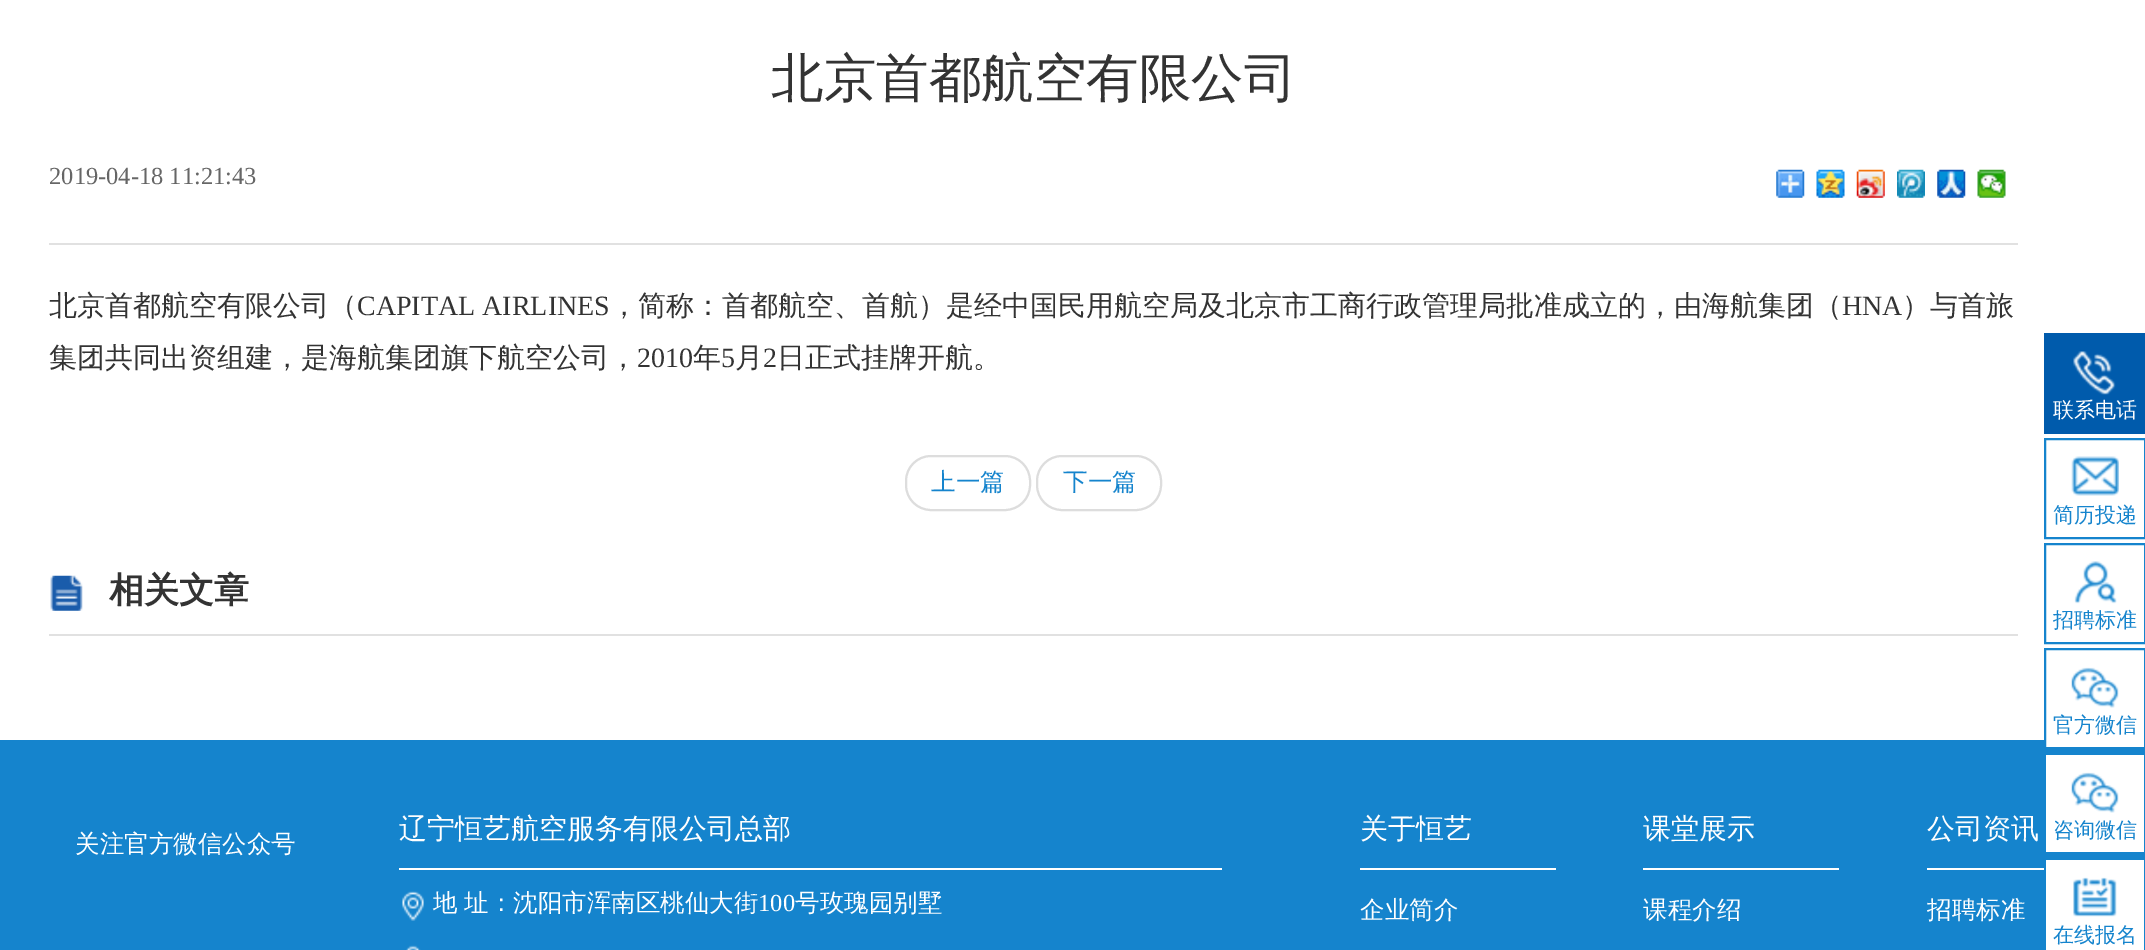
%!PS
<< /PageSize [2145 950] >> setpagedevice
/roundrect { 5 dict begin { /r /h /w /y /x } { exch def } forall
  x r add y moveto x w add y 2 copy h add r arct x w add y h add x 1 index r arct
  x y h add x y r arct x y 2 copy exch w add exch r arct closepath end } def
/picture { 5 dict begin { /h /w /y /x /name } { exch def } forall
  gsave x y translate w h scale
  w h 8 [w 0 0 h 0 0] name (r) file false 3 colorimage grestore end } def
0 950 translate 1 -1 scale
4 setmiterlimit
1 setgray
0 0 2145 950 rectfill
/WenQuanYiZenHei-Medium [52.5 0 0 -52.5 0 0] selectfont
0.2 setgray
771 96 moveto (北京首都航空有限公司) show
0.882 setgray
49 243 1969 2 rectfill
/LiberationSerif-Regular [24.5 0 0 -24.5 0 0] selectfont
0.4 setgray
49 184 moveto (2019-04-18 11:21:43) show
(img1.rgb) 1776 169 29 29 picture
(img2.rgb) 1816 169 29 29 picture
(img3.rgb) 1856 169 29 29 picture
(img4.rgb) 1897 169 28 29 picture
(img5.rgb) 1937 169 29 29 picture
(img6.rgb) 1977 169 29 29 picture
/WenQuanYiZenHei-Medium [28 0 0 -28 0 0] selectfont
0.2 setgray
49 315 moveto (北京首都航空有限公司（) show
/LiberationSerif-Regular [28 0 0 -28 0 0] selectfont
357 315 moveto (CAPITAL AIRLINES) show
/WenQuanYiZenHei-Medium [28 0 0 -28 0 0] selectfont
610 315 moveto (，简称：首都航空、首航）是经中国民用航空局及北京市工商行政管理局批准成立的，由海航集团（) show
/LiberationSerif-Regular [28 0 0 -28 0 0] selectfont
1842 315 moveto (HNA) show
/WenQuanYiZenHei-Medium [28 0 0 -28 0 0] selectfont
1902 315 moveto (）与首旅) show
49 367 moveto (集团共同出资组建，是海航集团旗下航空公司，) show
/LiberationSerif-Regular [28 0 0 -28 0 0] selectfont
637 367 moveto (2010) show
/WenQuanYiZenHei-Medium [28 0 0 -28 0 0] selectfont
693 367 moveto (年) show
/LiberationSerif-Regular [28 0 0 -28 0 0] selectfont
721 367 moveto (5) show
/WenQuanYiZenHei-Medium [28 0 0 -28 0 0] selectfont
735 367 moveto (月) show
/LiberationSerif-Regular [28 0 0 -28 0 0] selectfont
763 367 moveto (2) show
/WenQuanYiZenHei-Medium [28 0 0 -28 0 0] selectfont
777 367 moveto (日正式挂牌开航。) show
0.867 setgray
2 setlinewidth
906 456 124 54 25 roundrect stroke
/WenQuanYiZenHei-Medium [24.5 0 0 -24.5 0 0] selectfont
0.082 0.518 0.804 setrgbcolor
931 490 moveto (上一篇) show
0.867 setgray
1037 456 124 54 25 roundrect stroke
0.082 0.518 0.804 setrgbcolor
1063 490 moveto (下一篇) show
0.882 setgray
49 634 1969 2 rectfill
(img7.rgb) 50 575 33 36 picture
/WenQuanYiZenHei-Bold [35 0 0 -35 0 0] selectfont
0.2 setgray
109 602 moveto (相关文章) show
0.082 0.518 0.804 setrgbcolor
0 740 2145 210 rectfill
/WenQuanYiZenHei-Medium [24.5 0 0 -24.5 0 0] selectfont
1 setgray
75 852 moveto (关注官方微信公众号) show
399 868 823 2 rectfill
/WenQuanYiZenHei-Medium [28 0 0 -28 0 0] selectfont
399 838 moveto (辽宁恒艺航空服务有限公司总部) show
(img8.rgb) 402 891 22 30 picture
/WenQuanYiZenHei-Medium [24.5 0 0 -24.5 0 0] selectfont
433 911 moveto (地) show
464 911 moveto (址：沈阳市浑南区桃仙大街) show
/LiberationSerif-Regular [24.5 0 0 -24.5 0 0] selectfont
758 911 moveto (100) show
/WenQuanYiZenHei-Medium [24.5 0 0 -24.5 0 0] selectfont
795 911 moveto (号玫瑰园别墅) show
(img9.rgb) 406 945 15 5 picture
1360 868 196 2 rectfill
/WenQuanYiZenHei-Medium [28 0 0 -28 0 0] selectfont
1360 838 moveto (关于恒艺) show
/WenQuanYiZenHei-Medium [24.5 0 0 -24.5 0 0] selectfont
1360 918 moveto (企业简介) show
1643 868 196 2 rectfill
/WenQuanYiZenHei-Medium [28 0 0 -28 0 0] selectfont
1643 838 moveto (课堂展示) show
/WenQuanYiZenHei-Medium [24.5 0 0 -24.5 0 0] selectfont
1643 918 moveto (课程介绍) show
1927 868 117 2 rectfill
/WenQuanYiZenHei-Medium [28 0 0 -28 0 0] selectfont
1927 838 moveto (公司资讯) show
/WenQuanYiZenHei-Medium [24.5 0 0 -24.5 0 0] selectfont
1927 918 moveto (招聘标准) show
0 0.357 0.675 setrgbcolor
2044 333 101 101 rectfill
(img10.rgb) 2073 351 43 44 picture
/WenQuanYiZenHei-Medium [21 0 0 -21 0 0] selectfont
1 setgray
2053 417 moveto (联系电话) show
0.082 0.518 0.804 setrgbcolor
2045 439 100 99 rectstroke
(img11.rgb) 2071 456 48 40 picture
2053 522 moveto (简历投递) show
2045 544 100 99 rectstroke
(img12.rgb) 2074 561 43 43 picture
2053 627 moveto (招聘标准) show
1 setgray
2046 740 98 7 rectfill
0.082 0.518 0.804 setrgbcolor
2045 649 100 99 rectstroke
(img13.rgb) 2071 667 48 41 picture
2053 732 moveto (官方微信) show
1 setgray
2046 755 98 97 rectfill
(img14.rgb) 2071 772 48 41 picture
0.082 0.518 0.804 setrgbcolor
2053 837 moveto (咨询微信) show
1 setgray
2046 860 98 90 rectfill
(img15.rgb) 2073 877 44 40 picture
0.082 0.518 0.804 setrgbcolor
2053 942 moveto (在线报名) show
showpage
